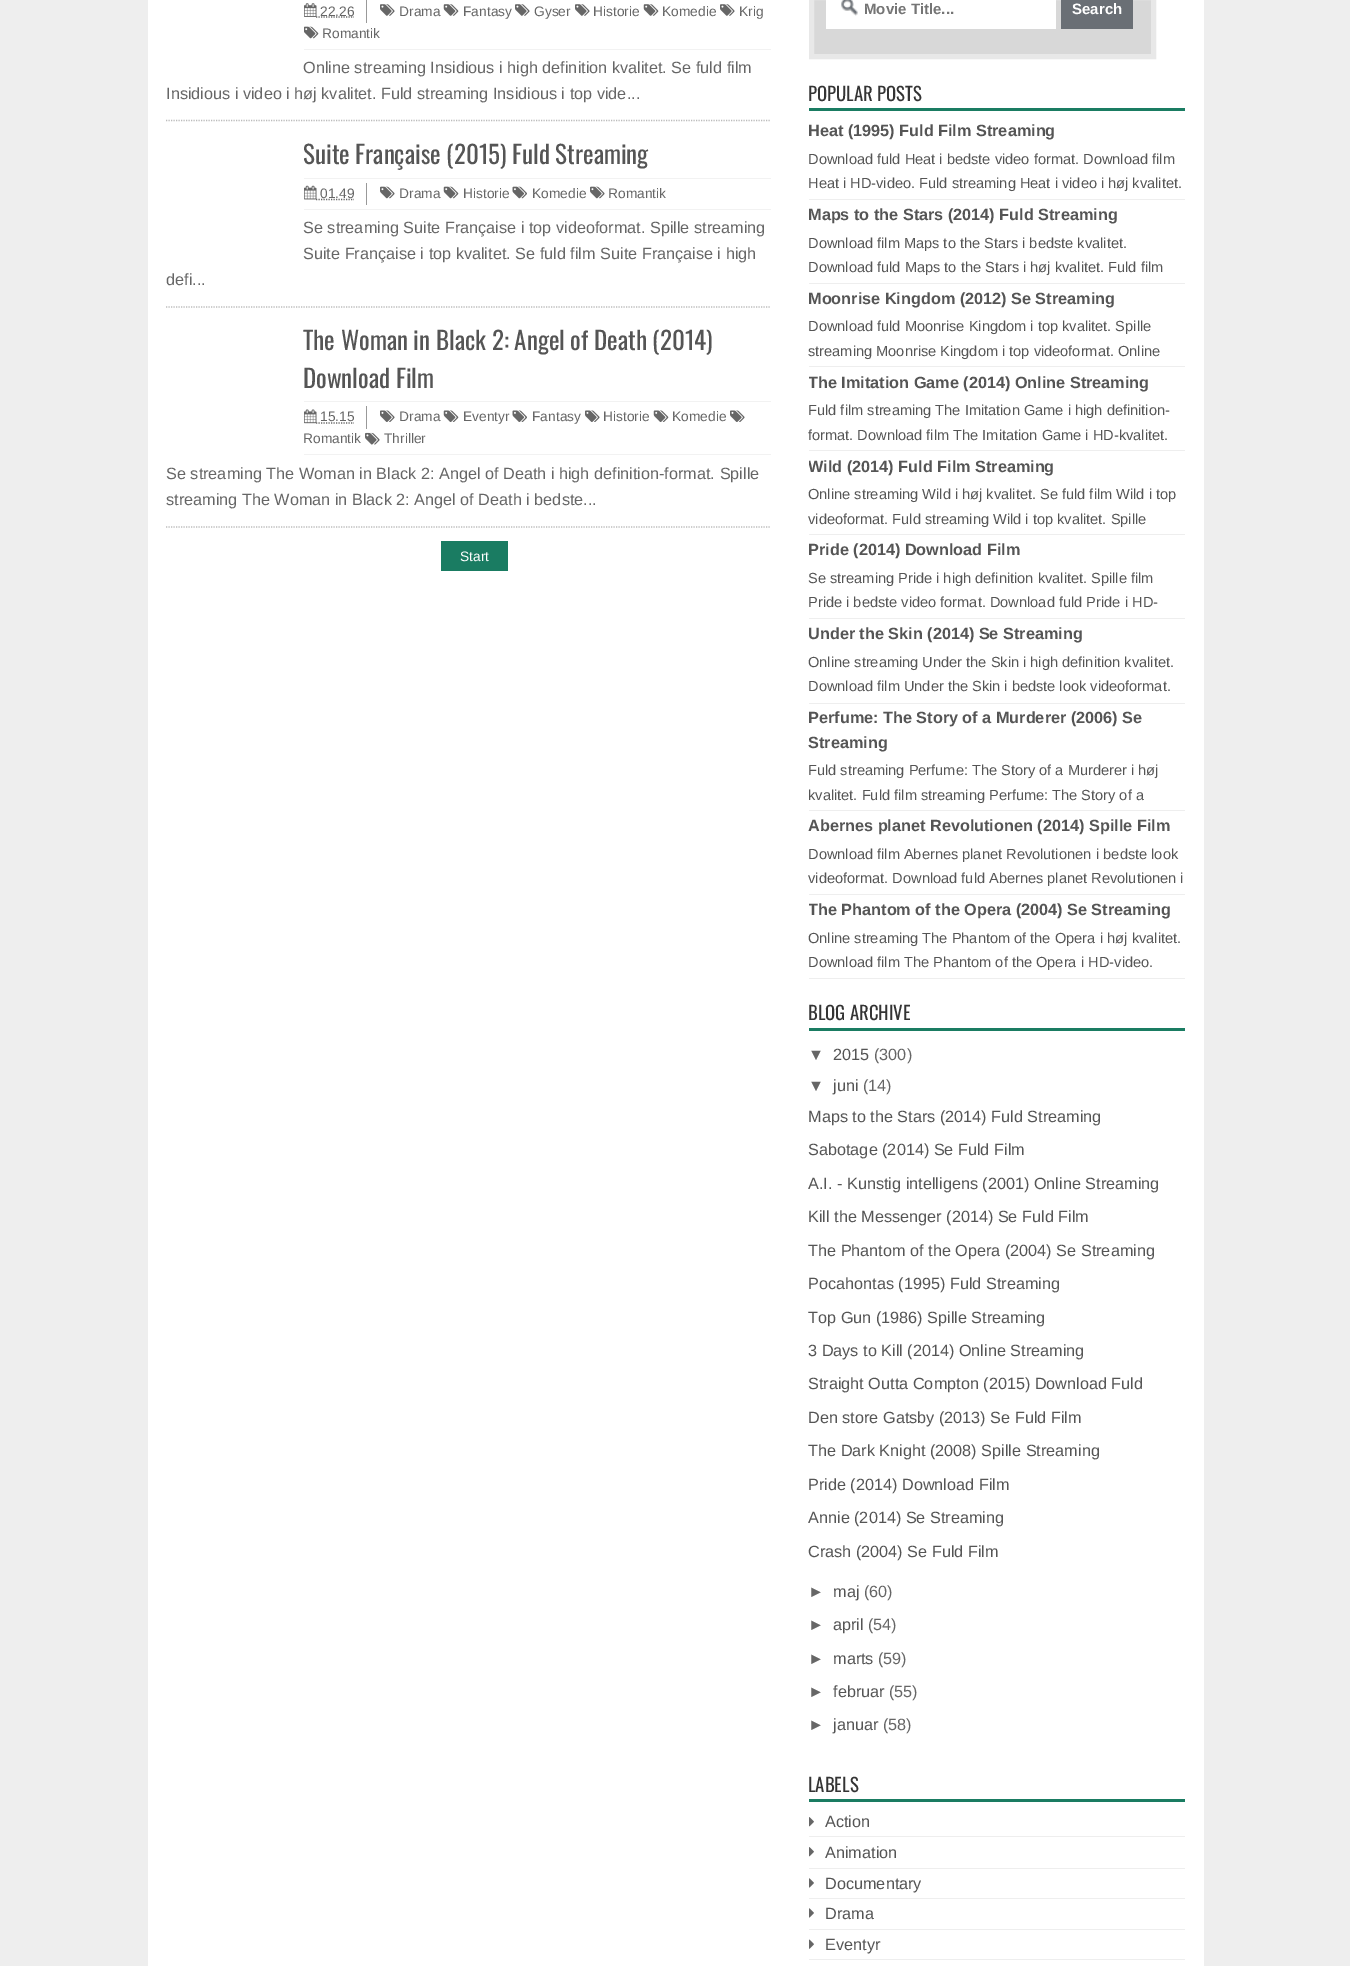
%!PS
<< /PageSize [1350 1966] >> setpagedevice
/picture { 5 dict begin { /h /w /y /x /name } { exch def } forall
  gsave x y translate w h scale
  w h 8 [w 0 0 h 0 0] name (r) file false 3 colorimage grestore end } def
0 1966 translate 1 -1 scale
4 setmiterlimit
0.933 setgray
0 0 1350 1966 rectfill
1 setgray
148 0 1056 1966 rectfill
0.733 setgray
1.2 setlinewidth
[1.25 1.25] 0 setdash
newpath 166 120.5 moveto 771 120.5 lineto stroke
0.949 setgray
304 49 467 1 rectfill
0.6 setgray
366 0 1 23 rectfill
(img1.rgb) 304 3 13 14 picture
0.4 setgray
newpath 316 17 moveto 354 17 lineto stroke
/LiberationSans-Regular [13.75 0 0 -13.75 0 0] selectfont
320 16 moveto (22.26) show
(img2.rgb) 380 4 15 12 picture
399 16 moveto (Drama) show
(img3.rgb) 443 4 16 12 picture
463 16 moveto (Fantasy) show
(img2.rgb) 515 4 15 12 picture
534 16 moveto (Gyser) show
(img2.rgb) 575 4 15 12 picture
593 16 moveto (Historie) show
(img3.rgb) 643 4 16 12 picture
662 16 moveto (Komedie) show
(img2.rgb) 720 4 15 12 picture
739 16 moveto (Krig) show
(img4.rgb) 304 26 15 13 picture
322 38 moveto (Romantik) show
/LiberationSans-Regular [16.25 0 0 -16.25 0 0] selectfont
303 73 moveto (Online streaming Insidious i high definition kvalitet. Se fuld film) show
166 99 moveto (Insidious i video i høj kvalitet. Fuld streaming Insidious i top vide...) show
0.733 setgray
newpath 166 307 moveto 771 307 lineto stroke
/Oswald-Regular [25 0 0 -25 0 0] selectfont
0.333 setgray
303 164 moveto (Suite Française \(2015\) Fuld Streaming) show
0.949 setgray
304 178 467 1 rectfill
304 209 467 1 rectfill
0.6 setgray
366 183 1 22 rectfill
(img5.rgb) 304 185 13 15 picture
0.4 setgray
newpath 316 199.5 moveto 354 199.5 lineto stroke
/LiberationSans-Regular [13.75 0 0 -13.75 0 0] selectfont
320 198 moveto (01.49) show
(img6.rgb) 380 186 15 13 picture
399 198 moveto (Drama) show
(img7.rgb) 443 186 16 13 picture
463 198 moveto (Historie) show
(img8.rgb) 512 186 15 13 picture
532 198 moveto (Komedie) show
(img6.rgb) 590 186 15 13 picture
608 198 moveto (Romantik) show
/LiberationSans-Regular [16.25 0 0 -16.25 0 0] selectfont
303 233 moveto (Se streaming Suite Française i top videoformat. Spille streaming) show
303 259 moveto (Suite Française i top kvalitet. Se fuld film Suite Française i high) show
166 285 moveto (defi...) show
0.733 setgray
newpath 166 527 moveto 771 527 lineto stroke
/Oswald-Regular [25 0 0 -25 0 0] selectfont
0.333 setgray
303 350 moveto (The Woman in Black 2: Angel of Death \(2014\)) show
303 388 moveto (Download Film) show
0.949 setgray
304 401 467 1 rectfill
304 454 467 1 rectfill
0.6 setgray
366 406 1 23 rectfill
(img9.rgb) 304 409 13 15 picture
/LiberationSans-Regular [13.75 0 0 -13.75 0 0] selectfont
0.4 setgray
320 421 moveto (15.15) show
newpath 316 423 moveto 354 423 lineto stroke
(img10.rgb) 380 410 15 12 picture
399 421 moveto (Drama) show
(img11.rgb) 443 410 16 12 picture
463 421 moveto (Eventyr) show
(img12.rgb) 512 410 15 12 picture
532 421 moveto (Fantasy) show
(img10.rgb) 585 410 15 12 picture
603 421 moveto (Historie) show
(img11.rgb) 653 410 16 12 picture
672 421 moveto (Komedie) show
(img10.rgb) 730 410 15 12 picture
303 443 moveto (Romantik) show
(img13.rgb) 365 432 15 13 picture
384 443 moveto (Thriller) show
/LiberationSans-Regular [16.25 0 0 -16.25 0 0] selectfont
166 479 moveto (Se streaming The Woman in Black 2: Angel of Death i high definition-format. Spille) show
166 505 moveto (streaming The Woman in Black 2: Angel of Death i bedste...) show
0.102 0.486 0.384 setrgbcolor
441 541 67 30 rectfill
/LiberationSans-Regular [13.75 0 0 -13.75 0 0] selectfont
1 setgray
460 561 moveto (Start) show
0.847 setgray
newpath 811.5 -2.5 moveto 1153.5 -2.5 lineto 1153.5 56.5 lineto 811.5 56.5 lineto closepath gsave fill grestore
0.91 setgray
5 setlinewidth
[] 0 setdash
stroke
1 setgray
826 0 230 29 rectfill
(img14.rgb) 841 0 17 16 picture
/LiberationSans-Bold [15 0 0 -15 0 0] selectfont
0.459 setgray
864 14 moveto (Movie Title...) show
0.416 0.435 0.459 setrgbcolor
1061 0 72 29 rectfill
1 setgray
1072 14 moveto (Search) show
0.102 0.486 0.384 setrgbcolor
809 108 376 3 rectfill
/Oswald-Regular [18.75 0 0 -18.75 0 0] selectfont
0.204 setgray
808 101 moveto (POPULAR POSTS) show
0.933 setgray
809 199 376 1 rectfill
/LiberationSans-Bold [16.25 0 0 -16.25 0 0] selectfont
0.333 setgray
808 136 moveto (Heat \(1995\) Fuld Film Streaming) show
/LiberationSans-Regular [14.6 0 0 -14.6 0 0] selectfont
808 164 moveto (Download fuld Heat i bedste video format. Download film) show
808 188 moveto (Heat i HD-video. Fuld streaming Heat i video i høj kvalitet.) show
0.933 setgray
809 283 376 1 rectfill
/LiberationSans-Bold [16.25 0 0 -16.25 0 0] selectfont
0.333 setgray
808 220 moveto (Maps to the Stars \(2014\) Fuld Streaming) show
/LiberationSans-Regular [14.6 0 0 -14.6 0 0] selectfont
808 248 moveto (Download film Maps to the Stars i bedste kvalitet.) show
808 272 moveto (Download fuld Maps to the Stars i høj kvalitet. Fuld film) show
0.933 setgray
809 366 376 1 rectfill
/LiberationSans-Bold [16.25 0 0 -16.25 0 0] selectfont
0.333 setgray
808 304 moveto (Moonrise Kingdom \(2012\) Se Streaming) show
/LiberationSans-Regular [14.6 0 0 -14.6 0 0] selectfont
808 331 moveto (Download fuld Moonrise Kingdom i top kvalitet. Spille) show
808 356 moveto (streaming Moonrise Kingdom i top videoformat. Online) show
0.933 setgray
809 450 376 1 rectfill
gsave
809 116 376 863 rectclip
/LiberationSans-Bold [16.25 0 0 -16.25 0 0] selectfont
0.333 setgray
808 388 moveto (The Imitation Game \(2014\) Online Streaming) show
grestore
0.333 setgray
808 415 moveto (Fuld film streaming The Imitation Game i high definition-) show
808 440 moveto (format. Download film The Imitation Game i HD-kvalitet.) show
0.933 setgray
809 534 376 1 rectfill
gsave
809 116 376 863 rectclip
/LiberationSans-Bold [16.25 0 0 -16.25 0 0] selectfont
0.333 setgray
808 472 moveto (Wild \(2014\) Fuld Film Streaming) show
grestore
0.333 setgray
808 499 moveto (Online streaming Wild i høj kvalitet. Se fuld film Wild i top) show
808 524 moveto (videoformat. Fuld streaming Wild i top kvalitet. Spille) show
0.933 setgray
809 618 376 1 rectfill
/LiberationSans-Bold [16.25 0 0 -16.25 0 0] selectfont
0.333 setgray
808 555 moveto (Pride \(2014\) Download Film) show
/LiberationSans-Regular [14.6 0 0 -14.6 0 0] selectfont
808 583 moveto (Se streaming Pride i high definition kvalitet. Spille film) show
808 607 moveto (Pride i bedste video format. Download fuld Pride) show
1125 607 moveto (i HD-) show
0.933 setgray
809 703 376 1 rectfill
/LiberationSans-Bold [16.25 0 0 -16.25 0 0] selectfont
0.333 setgray
808 639 moveto (Under the Skin \(2014\) Se Streaming) show
/LiberationSans-Regular [14.6 0 0 -14.6 0 0] selectfont
808 667 moveto (Online streaming Under the Skin i high definition kvalitet.) show
808 691 moveto (Download film Under the Skin i bedste look videoformat.) show
0.933 setgray
809 810 376 1 rectfill
/LiberationSans-Bold [16.25 0 0 -16.25 0 0] selectfont
0.333 setgray
808 723 moveto (Perfume: The Story of a Murderer \(2006\) Se) show
808 748 moveto (Streaming) show
/LiberationSans-Regular [14.6 0 0 -14.6 0 0] selectfont
808 775 moveto (Fuld streaming Perfume: The Story of a Murderer) show
1131 775 moveto (i høj) show
808 800 moveto (kvalitet. Fuld film streaming Perfume: The Story of a) show
0.933 setgray
809 894 376 1 rectfill
/LiberationSans-Bold [16.25 0 0 -16.25 0 0] selectfont
0.333 setgray
808 831 moveto (Abernes planet Revolutionen \(2014\) Spille Film) show
/LiberationSans-Regular [14.6 0 0 -14.6 0 0] selectfont
808 859 moveto (Download film Abernes planet Revolutionen) show
1096 859 moveto (i bedste look) show
808 883 moveto (videoformat. Download fuld Abernes planet Revolutionen i) show
0.933 setgray
809 978 376 1 rectfill
gsave
809 116 376 863 rectclip
/LiberationSans-Bold [16.25 0 0 -16.25 0 0] selectfont
0.333 setgray
808 915 moveto (The Phantom of the Opera \(2004\) Se Streaming) show
grestore
0.333 setgray
808 943 moveto (Online streaming The Phantom of the Opera) show
1100 943 moveto (i høj kvalitet.) show
808 967 moveto (Download film The Phantom of the Opera) show
1081 967 moveto (i HD-video.) show
0.102 0.486 0.384 setrgbcolor
809 1028 376 3 rectfill
/Oswald-Regular [18.75 0 0 -18.75 0 0] selectfont
0.204 setgray
808 1020 moveto (BLOG ARCHIVE) show
/LiberationSans-Regular [16.25 0 0 -16.25 0 0] selectfont
0.4 setgray
808 1060 moveto (▼) show
0.333 setgray
833 1060 moveto (2015) show
0.4 setgray
874 1060 moveto (\(300\)) show
808 1091 moveto (▼) show
0.333 setgray
833 1091 moveto (juni) show
0.4 setgray
863 1091 moveto (\(14\)) show
0.333 setgray
808 1122 moveto (Maps to the Stars \(2014\) Fuld Streaming) show
808 1155 moveto (Sabotage \(2014\) Se Fuld Film) show
808 1189 moveto (A.I. - Kunstig intelligens \(2001\) Online Streaming) show
808 1222 moveto (Kill the Messenger \(2014\) Se Fuld Film) show
808 1256 moveto (The Phantom of the Opera \(2004\) Se Streaming) show
808 1289 moveto (Pocahontas \(1995\) Fuld Streaming) show
808 1323 moveto (Top Gun \(1986\) Spille Streaming) show
808 1356 moveto (3 Days to Kill \(2014\) Online Streaming) show
808 1389 moveto (Straight Outta Compton \(2015\) Download Fuld) show
808 1423 moveto (Den store Gatsby \(2013\) Se Fuld Film) show
808 1456 moveto (The Dark Knight \(2008\) Spille Streaming) show
808 1490 moveto (Pride \(2014\) Download Film) show
808 1523 moveto (Annie \(2014\) Se Streaming) show
808 1557 moveto (Crash \(2004\) Se Fuld Film) show
0.4 setgray
808 1597 moveto (►) show
0.333 setgray
833 1597 moveto (maj) show
0.4 setgray
864 1597 moveto (\(60\)) show
808 1630 moveto (►) show
0.333 setgray
833 1630 moveto (april) show
0.4 setgray
868 1630 moveto (\(54\)) show
808 1664 moveto (►) show
0.333 setgray
833 1664 moveto (marts) show
0.4 setgray
878 1664 moveto (\(59\)) show
808 1697 moveto (►) show
0.333 setgray
833 1697 moveto (februar) show
0.4 setgray
889 1697 moveto (\(55\)) show
808 1730 moveto (►) show
0.333 setgray
833 1730 moveto (januar) show
0.4 setgray
883 1730 moveto (\(58\)) show
0.102 0.486 0.384 setrgbcolor
809 1799 376 3 rectfill
/Oswald-Regular [18.75 0 0 -18.75 0 0] selectfont
0.204 setgray
808 1792 moveto (LABELS) show
0.933 setgray
809 1836 376 1 rectfill
(img15.rgb) 809 1817 5 10 picture
/LiberationSans-Regular [16.25 0 0 -16.25 0 0] selectfont
0.333 setgray
825 1827 moveto (Action) show
0.933 setgray
809 1868 376 1 rectfill
(img15.rgb) 809 1847 5 10 picture
0.333 setgray
825 1858 moveto (Animation) show
0.933 setgray
809 1898 376 1 rectfill
(img16.rgb) 809 1878 5 10 picture
0.333 setgray
825 1889 moveto (Documentary) show
0.933 setgray
809 1929 376 1 rectfill
(img16.rgb) 809 1908 5 10 picture
0.333 setgray
825 1919 moveto (Drama) show
0.933 setgray
809 1959 376 1 rectfill
(img17.rgb) 809 1939 5 10 picture
0.333 setgray
825 1950 moveto (Eventyr) show
showpage
